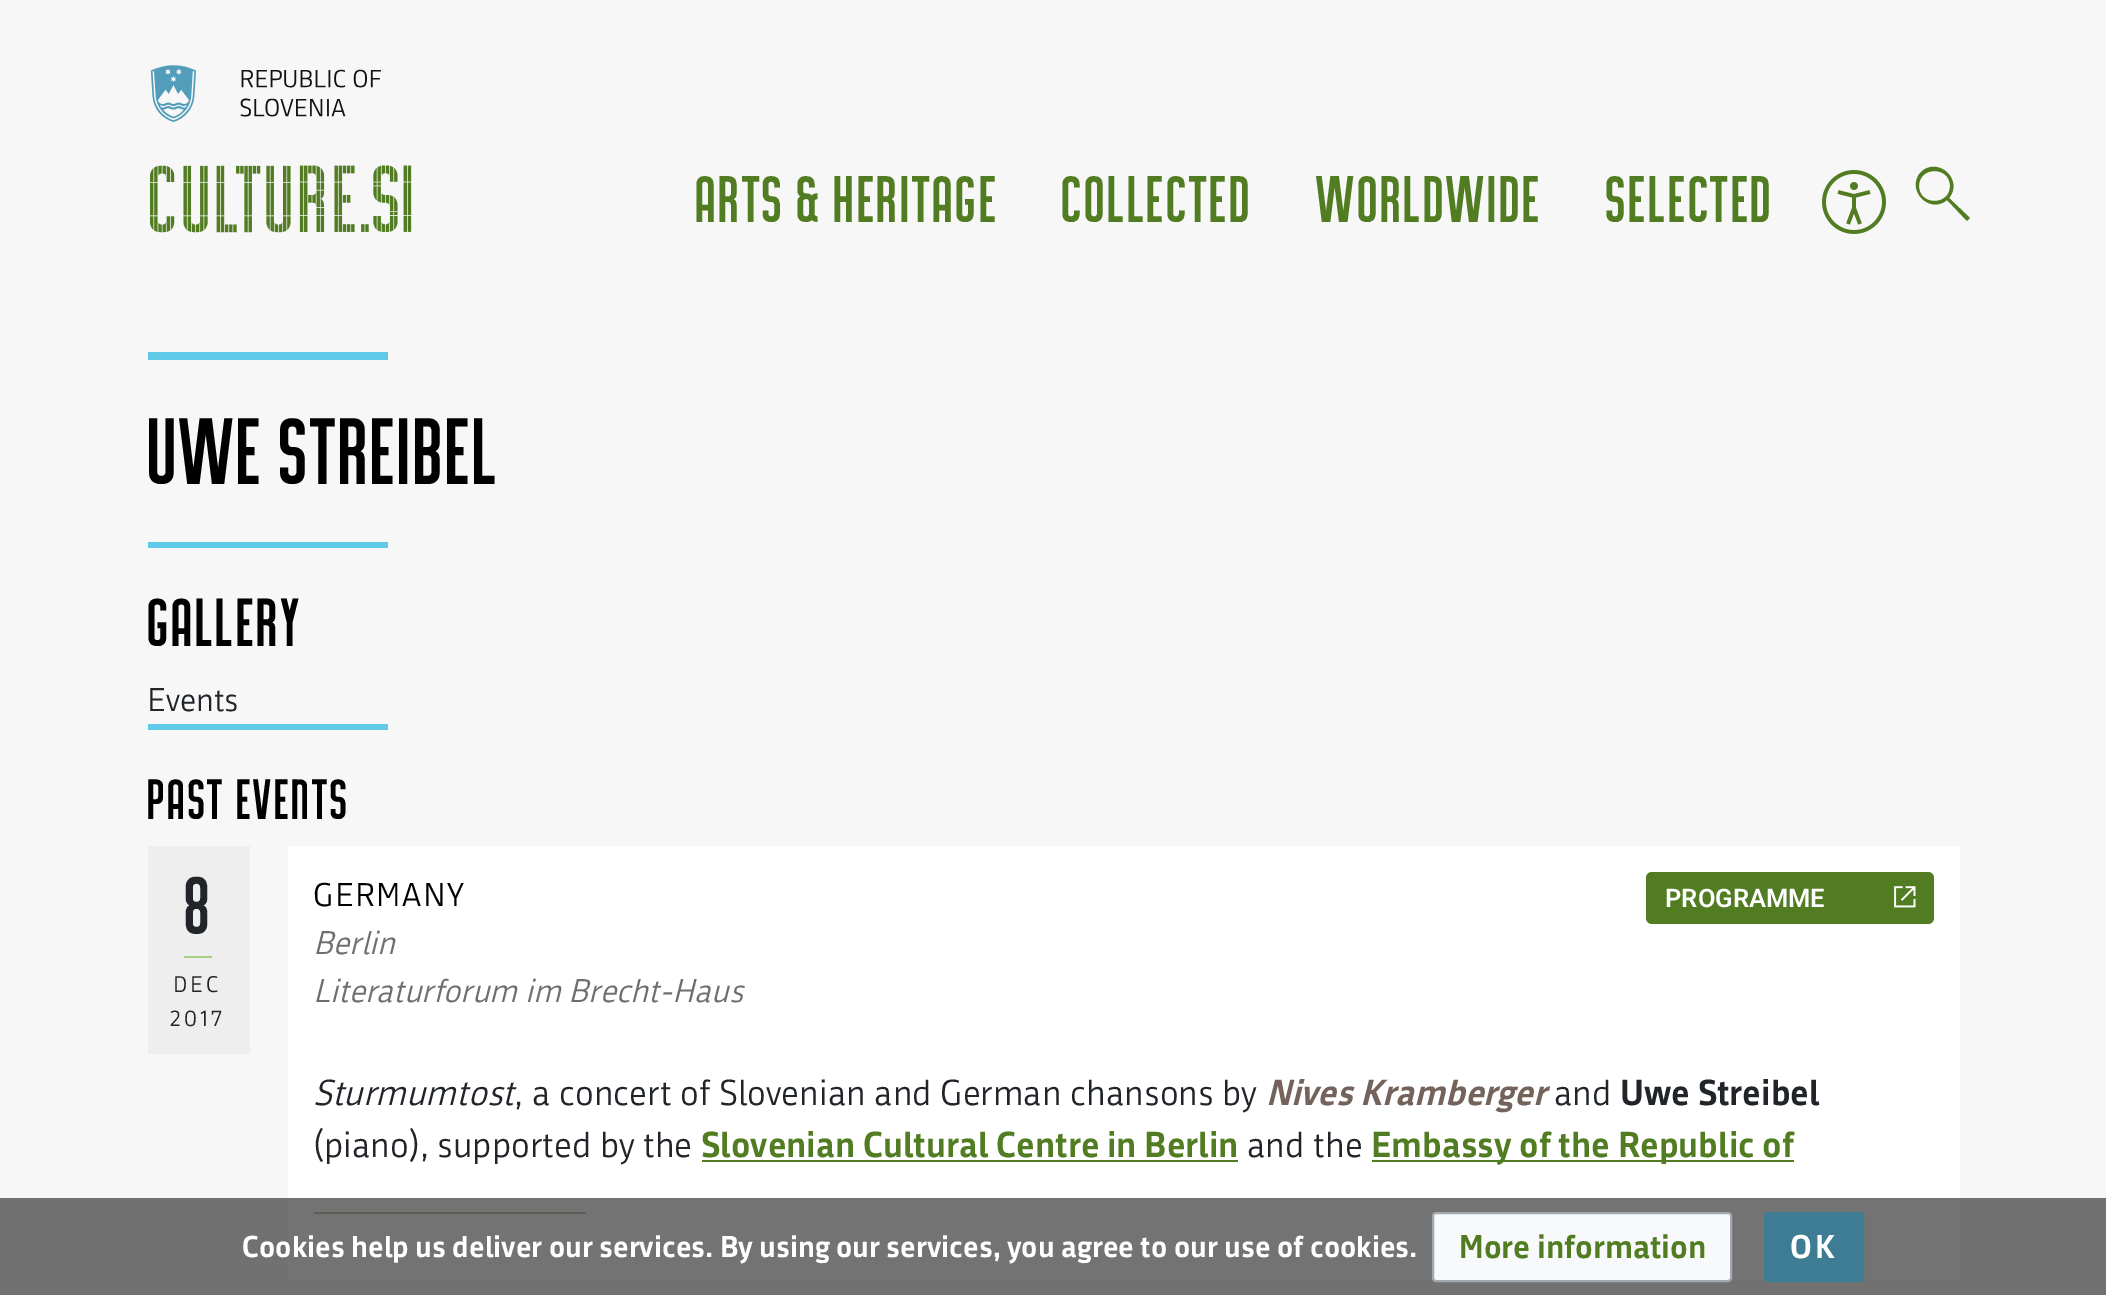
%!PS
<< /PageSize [2106 1295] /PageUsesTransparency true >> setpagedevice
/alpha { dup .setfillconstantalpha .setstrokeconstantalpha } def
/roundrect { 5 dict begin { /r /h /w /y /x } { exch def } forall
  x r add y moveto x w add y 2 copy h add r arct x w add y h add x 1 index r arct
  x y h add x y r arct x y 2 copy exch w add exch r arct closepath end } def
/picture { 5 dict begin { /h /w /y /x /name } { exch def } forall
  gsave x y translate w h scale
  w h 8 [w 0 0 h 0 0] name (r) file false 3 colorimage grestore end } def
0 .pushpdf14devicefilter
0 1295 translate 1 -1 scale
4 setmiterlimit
0.969 setgray
0 0 2106 1295 rectfill
(img1.rgb) 150 65 262 168 picture
/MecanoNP-Regular [51.25 0 0 -51.25 0 0] selectfont
0.318 0.486 0.133 setrgbcolor
695 222 moveto 3.25 0 (Arts & Heritage) ashow
1061 222 moveto 3.25 0 (Collected) ashow
1316 222 moveto 3.25 0 (Worldwide) ashow
1605 222 moveto 3.25 0 (Selected) ashow
(img2.rgb) 1822 170 64 64 picture
newpath 1970 218 moveto 1949 198 lineto 1964 180 1938 156 1921 172 curveto 1905 189 1929 215 1947 200 curveto 1967 221 lineto closepath 1919 186 moveto 1919 166 1950 166 1950 186 curveto 1950 206 1919 206 1919 186 curveto closepath fill
0.369 0.792 0.906 setrgbcolor
148 352 240 8 rectfill
/MecanoNP-Regular [73.5 0 0 -73.5 0 0] selectfont
0 setgray
147 484 moveto 3.25 0 (Uwe Streibel) ashow
0.369 0.792 0.906 setrgbcolor
148 542 240 6 rectfill
/MecanoNP-Regular [53 0 0 -53 0 0] selectfont
0 setgray
147 646 moveto 3.25 0 (Gallery) ashow
/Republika-Regular [32 0 0 -32 0 0] selectfont
0.129 0.145 0.161 setrgbcolor
147 711 moveto (Events) show
0.369 0.792 0.906 setrgbcolor
148 724 240 6 rectfill
/MecanoNP-Regular [44.25 0 0 -44.25 0 0] selectfont
0 setgray
147 819 moveto 3.25 0 (Past events) ashow
0.933 setgray
148 846 102 208 rectfill
0.651 0.808 0.522 setrgbcolor
184 956 28 2 rectfill
/MecanoNP-Regular [64 0 0 -64 0 0] selectfont
0.129 0.145 0.161 setrgbcolor
184 934 moveto 3.25 0 (8) ashow
/Republika-Regular [22 0 0 -22 0 0] selectfont
173 992 moveto 3.25 0 (DEC) ashow
170 1026 moveto 3.25 0 (2017) ashow
1 setgray
288 846 1672 196 rectfill
/Republika-Regular [32 0 0 -32 0 0] selectfont
0 setgray
313 906 moveto 1.5 0 (GERMANY) ashow
/Republika-Italic [32 0 0 -32 0 0] selectfont
0.427 0.431 0.443 setrgbcolor
313 954 moveto (Berlin) show
313 1002 moveto (Literaturforum im Brecht-Haus) show
0.318 0.486 0.133 setrgbcolor
1646 872 288 52 6 roundrect fill
/Roboto-SemiBold [25.5 0 0 -25.5 0 0] selectfont
1 setgray
1665 907 moveto (PROGRAMME) show
(img3.rgb) 1894 886 22 22 picture
288 1042 1672 238 rectfill
/Republika-Italic [35.2 0 0 -35.2 0 0] selectfont
0.129 0.145 0.161 setrgbcolor
313 1105 moveto (Sturmumtost) show
/Republika-Regular [35.2 0 0 -35.2 0 0] selectfont
514 1105 moveto (, a concert of Slovenian and German chansons by) show
/Republika-BoldItalic [35.2 0 0 -35.2 0 0] selectfont
0.451 0.388 0.357 setrgbcolor
1266 1105 moveto (Nives Kramberger) show
/Republika-Regular [35.2 0 0 -35.2 0 0] selectfont
0.129 0.145 0.161 setrgbcolor
1554 1105 moveto (and) show
/Republika-Bold [35.2 0 0 -35.2 0 0] selectfont
1620 1105 moveto (Uwe Streibel) show
/Republika-Regular [35.2 0 0 -35.2 0 0] selectfont
313 1157 moveto (\(piano\), supported by the) show
/Republika-Bold [35.2 0 0 -35.2 0 0] selectfont
0.318 0.486 0.133 setrgbcolor
701 1157 moveto (Slovenian Cultural Centre in Berlin) show
702 1160 536 2 rectfill
/Republika-Regular [35.2 0 0 -35.2 0 0] selectfont
0.129 0.145 0.161 setrgbcolor
1247 1157 moveto (and the) show
0.318 0.486 0.133 setrgbcolor
1372 1160 422 2 rectfill
/Republika-Bold [35.2 0 0 -35.2 0 0] selectfont
1371 1157 moveto (Embassy of the Republic of) show
314 1212 272 2 rectfill
0.85 alpha
0.353 setgray
0 1198 2106 97 rectfill
/Republika-Bold [29.45 0 0 -29.45 0 0] selectfont
1 alpha
1 setgray
242 1257 moveto (Cookies help us deliver our services. By using our services, you agree to our use of cookies.) show
0.973 0.976 0.98 setrgbcolor
1433 1213 298 68 3 roundrect gsave fill grestore
0.635 0.663 0.694 setrgbcolor
2 setlinewidth
stroke
/Republika-Bold [32 0 0 -32 0 0] selectfont
0.318 0.486 0.133 setrgbcolor
1459 1258 moveto (More information) show
0.243 0.486 0.58 setrgbcolor
1765 1213 98 68 3 roundrect gsave fill grestore
stroke
1 setgray
1790 1258 moveto 3.25 0 (OK) ashow
.poppdf14devicefilter showpage
